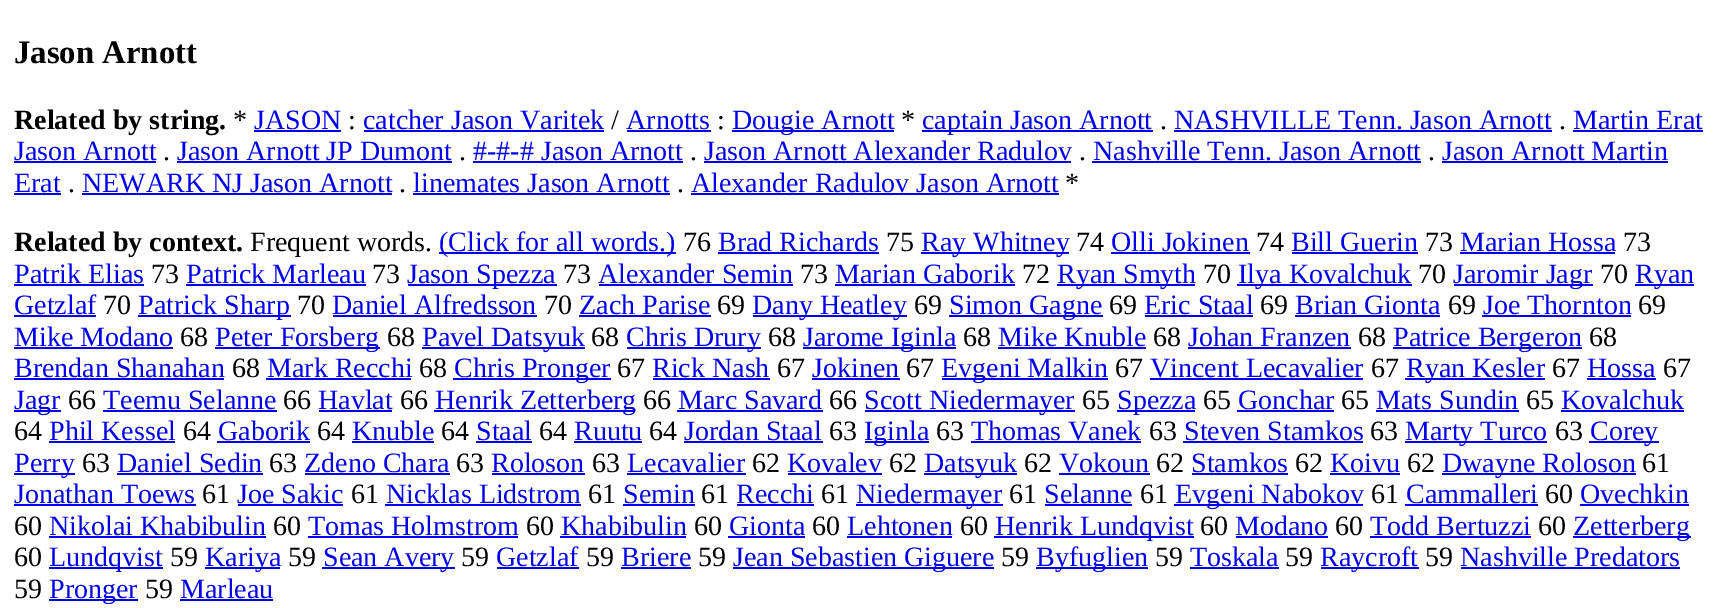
%!PS
<< /PageSize [1724 608] >> setpagedevice
0 608 translate 1 -1 scale
4 setmiterlimit
1 setgray
0 0 1724 608 rectfill
/LiberationSerif-Bold [32.75 0 0 -32.75 0 0] selectfont
0 setgray
14 63 moveto (Jason Arnott) show
/LiberationSerif-Bold [28 0 0 -28 0 0] selectfont
14 129 moveto (Related by string.) show
/LiberationSerif-Regular [28 0 0 -28 0 0] selectfont
233 129 moveto (*) show
0 0 0.933 setrgbcolor
254 129 moveto (JASON) show
254 130 87 2 rectfill
0 setgray
348 129 moveto (:) show
0 0 0.933 setrgbcolor
363 129 moveto (catcher Jason Varitek) show
364 130 240 2 rectfill
0 setgray
611 129 moveto (/) show
0 0 0.933 setrgbcolor
626 129 moveto (Arnotts) show
627 130 84 2 rectfill
0 setgray
717 129 moveto (:) show
0 0 0.933 setrgbcolor
732 130 162 2 rectfill
732 129 moveto (Dougie Arnott) show
0 setgray
901 129 moveto (*) show
0 0 0.933 setrgbcolor
922 130 231 2 rectfill
922 129 moveto (captain Jason Arnott) show
0 setgray
1160 129 moveto (.) show
0 0 0.933 setrgbcolor
1174 129 moveto (NASHVILLE Tenn. Jason Arnott) show
1174 130 378 2 rectfill
0 setgray
1559 129 moveto (.) show
0 0 0.933 setrgbcolor
1573 129 moveto (Martin Erat) show
1573 130 130 2 rectfill
14 160 moveto (Jason Arnott) show
14 161 142 2 rectfill
0 setgray
163 160 moveto (.) show
0 0 0.933 setrgbcolor
177 160 moveto (Jason Arnott JP Dumont) show
177 161 275 2 rectfill
0 setgray
459 160 moveto (.) show
0 0 0.933 setrgbcolor
473 160 moveto (#-#-# Jason Arnott) show
473 161 210 2 rectfill
0 setgray
690 160 moveto (.) show
0 0 0.933 setrgbcolor
704 160 moveto (Jason Arnott Alexander Radulov) show
704 161 367 2 rectfill
0 setgray
1079 160 moveto (.) show
0 0 0.933 setrgbcolor
1093 160 moveto (Nashville Tenn. Jason Arnott) show
1092 161 329 2 rectfill
0 setgray
1428 160 moveto (.) show
0 0 0.933 setrgbcolor
1442 160 moveto (Jason Arnott Martin) show
1442 161 226 2 rectfill
14 192 moveto (Erat) show
14 193 47 2 rectfill
82 192 moveto (NEWARK NJ Jason Arnott) show
82 193 310 2 rectfill
413 192 moveto (linemates Jason Arnott) show
413 193 257 2 rectfill
691 192 moveto (Alexander Radulov Jason Arnott) show
691 193 368 2 rectfill
0 setgray
1065 192 moveto (*) show
68 192 moveto (.) show
399 192 moveto (.) show
677 192 moveto (.) show
/LiberationSerif-Bold [28 0 0 -28 0 0] selectfont
14 251 moveto (Related by context.) show
/LiberationSerif-Regular [28 0 0 -28 0 0] selectfont
250 251 moveto (Frequent words.) show
0 0 0.933 setrgbcolor
439 252 237 2 rectfill
439 251 moveto (\(Click for all words.\)) show
0 setgray
683 251 moveto (76) show
0 0 0.933 setrgbcolor
718 251 moveto (Brad Richards) show
718 252 161 2 rectfill
0 setgray
886 251 moveto (75) show
0 0 0.933 setrgbcolor
921 252 148 2 rectfill
921 251 moveto (Ray Whitney) show
0 setgray
1076 251 moveto (74) show
0 0 0.933 setrgbcolor
1111 251 moveto (Olli Jokinen) show
1111 252 139 2 rectfill
0 setgray
1256 251 moveto (74) show
0 0 0.933 setrgbcolor
1291 251 moveto (Bill Guerin) show
1292 252 126 2 rectfill
0 setgray
1425 251 moveto (73) show
0 0 0.933 setrgbcolor
1460 251 moveto (Marian Hossa) show
1460 252 155 2 rectfill
0 setgray
1623 251 moveto (73) show
0 0 0.933 setrgbcolor
14 283 moveto (Patrik Elias) show
14 284 130 2 rectfill
0 setgray
151 283 moveto (73) show
0 0 0.933 setrgbcolor
186 283 moveto (Patrick Marleau) show
186 284 180 2 rectfill
0 setgray
372 283 moveto (73) show
0 0 0.933 setrgbcolor
408 284 149 2 rectfill
407 283 moveto (Jason Spezza) show
0 setgray
563 283 moveto (73) show
0 0 0.933 setrgbcolor
598 283 moveto (Alexander Semin) show
599 284 194 2 rectfill
0 setgray
800 283 moveto (73) show
0 0 0.933 setrgbcolor
835 283 moveto (Marian Gaborik) show
835 284 180 2 rectfill
0 setgray
1022 283 moveto (72) show
0 0 0.933 setrgbcolor
1057 284 138 2 rectfill
1057 283 moveto (Ryan Smyth) show
0 setgray
1203 283 moveto (70) show
0 0 0.933 setrgbcolor
1237 284 175 2 rectfill
1238 283 moveto (Ilya Kovalchuk) show
0 setgray
1418 283 moveto (70) show
0 0 0.933 setrgbcolor
1454 284 139 2 rectfill
1453 283 moveto (Jaromir Jagr) show
0 setgray
1600 283 moveto (70) show
0 0 0.933 setrgbcolor
1635 284 59 2 rectfill
1635 283 moveto (Ryan) show
14 314 moveto (Getzlaf) show
14 315 82 2 rectfill
0 setgray
103 314 moveto (70) show
0 0 0.933 setrgbcolor
138 315 153 2 rectfill
138 314 moveto (Patrick Sharp) show
0 setgray
297 314 moveto (70) show
0 0 0.933 setrgbcolor
332 314 moveto (Daniel Alfredsson) show
333 315 204 2 rectfill
0 setgray
544 314 moveto (70) show
0 0 0.933 setrgbcolor
579 314 moveto (Zach Parise) show
579 315 132 2 rectfill
0 setgray
717 314 moveto (69) show
0 0 0.933 setrgbcolor
753 315 154 2 rectfill
752 314 moveto (Dany Heatley) show
0 setgray
914 314 moveto (69) show
0 0 0.933 setrgbcolor
949 315 154 2 rectfill
949 314 moveto (Simon Gagne) show
0 setgray
1109 314 moveto (69) show
0 0 0.933 setrgbcolor
1144 314 moveto (Eric Staal) show
1145 315 108 2 rectfill
0 setgray
1260 314 moveto (69) show
0 0 0.933 setrgbcolor
1295 314 moveto (Brian Gionta) show
1295 315 145 2 rectfill
0 setgray
1448 314 moveto (69) show
0 0 0.933 setrgbcolor
1483 314 moveto (Joe Thornton) show
1482 315 149 2 rectfill
0 setgray
1638 314 moveto (69) show
0 0 0.933 setrgbcolor
14 346 moveto (Mike Modano) show
14 347 159 2 rectfill
0 setgray
180 346 moveto (68) show
0 0 0.933 setrgbcolor
215 347 165 2 rectfill
215 346 moveto (Peter Forsberg) show
0 setgray
387 346 moveto (68) show
0 0 0.933 setrgbcolor
422 347 163 2 rectfill
422 346 moveto (Pavel Datsyuk) show
0 setgray
591 346 moveto (68) show
0 0 0.933 setrgbcolor
627 347 134 2 rectfill
626 346 moveto (Chris Drury) show
0 setgray
768 346 moveto (68) show
0 0 0.933 setrgbcolor
803 347 153 2 rectfill
803 346 moveto (Jarome Iginla) show
0 setgray
963 346 moveto (68) show
0 0 0.933 setrgbcolor
998 346 moveto (Mike Knuble) show
998 347 148 2 rectfill
0 setgray
1153 346 moveto (68) show
0 0 0.933 setrgbcolor
1188 346 moveto (Johan Franzen) show
1188 347 163 2 rectfill
0 setgray
1358 346 moveto (68) show
0 0 0.933 setrgbcolor
1393 347 189 2 rectfill
1393 346 moveto (Patrice Bergeron) show
0 setgray
1589 346 moveto (68) show
0 0 0.933 setrgbcolor
14 377 moveto (Brendan Shanahan) show
14 378 210 2 rectfill
0 setgray
232 377 moveto (68) show
0 0 0.933 setrgbcolor
267 377 moveto (Mark Recchi) show
266 378 145 2 rectfill
0 setgray
419 377 moveto (68) show
0 0 0.933 setrgbcolor
453 378 158 2 rectfill
454 377 moveto (Chris Pronger) show
0 setgray
617 377 moveto (67) show
0 0 0.933 setrgbcolor
652 377 moveto (Rick Nash) show
653 378 117 2 rectfill
0 setgray
777 377 moveto (67) show
0 0 0.933 setrgbcolor
812 377 moveto (Jokinen) show
812 378 88 2 rectfill
0 setgray
906 377 moveto (67) show
0 0 0.933 setrgbcolor
942 378 166 2 rectfill
941 377 moveto (Evgeni Malkin) show
0 setgray
1115 377 moveto (67) show
0 0 0.933 setrgbcolor
1150 377 moveto (Vincent Lecavalier) show
1150 378 213 2 rectfill
0 setgray
1371 377 moveto (67) show
0 0 0.933 setrgbcolor
1405 378 140 2 rectfill
1406 377 moveto (Ryan Kesler) show
0 setgray
1552 377 moveto (67) show
0 0 0.933 setrgbcolor
1587 377 moveto (Hossa) show
1587 378 69 2 rectfill
0 setgray
1663 377 moveto (67) show
0 0 0.933 setrgbcolor
14 410 47 2 rectfill
14 409 moveto (Jagr) show
0 setgray
68 409 moveto (66) show
0 0 0.933 setrgbcolor
103 409 moveto (Teemu Selanne) show
103 410 174 2 rectfill
0 setgray
283 409 moveto (66) show
0 0 0.933 setrgbcolor
318 409 moveto (Havlat) show
319 410 73 2 rectfill
0 setgray
400 409 moveto (66) show
0 0 0.933 setrgbcolor
434 410 201 2 rectfill
435 409 moveto (Henrik Zetterberg) show
0 setgray
643 409 moveto (66) show
0 0 0.933 setrgbcolor
678 409 moveto (Marc Savard) show
677 410 146 2 rectfill
0 setgray
829 409 moveto (66) show
0 0 0.933 setrgbcolor
865 410 210 2 rectfill
864 409 moveto (Scott Niedermayer) show
0 setgray
1082 409 moveto (65) show
0 0 0.933 setrgbcolor
1117 410 78 2 rectfill
1117 409 moveto (Spezza) show
0 setgray
1203 409 moveto (65) show
0 0 0.933 setrgbcolor
1238 409 moveto (Gonchar) show
1237 410 97 2 rectfill
0 setgray
1341 409 moveto (65) show
0 0 0.933 setrgbcolor
1376 409 moveto (Mats Sundin) show
1376 410 143 2 rectfill
0 setgray
1526 409 moveto (65) show
0 0 0.933 setrgbcolor
1561 409 moveto (Kovalchuk) show
1561 410 123 2 rectfill
0 setgray
14 440 moveto (64) show
0 0 0.933 setrgbcolor
49 440 moveto (Phil Kessel) show
49 441 126 2 rectfill
0 setgray
183 440 moveto (64) show
0 0 0.933 setrgbcolor
218 440 moveto (Gaborik) show
217 441 93 2 rectfill
0 setgray
317 440 moveto (64) show
0 0 0.933 setrgbcolor
352 440 moveto (Knuble) show
352 441 82 2 rectfill
0 setgray
441 440 moveto (64) show
0 0 0.933 setrgbcolor
476 440 moveto (Staal) show
476 441 56 2 rectfill
0 setgray
539 440 moveto (64) show
0 0 0.933 setrgbcolor
574 440 moveto (Ruutu) show
574 441 68 2 rectfill
0 setgray
649 440 moveto (64) show
0 0 0.933 setrgbcolor
684 440 moveto (Jordan Staal) show
684 441 139 2 rectfill
0 setgray
829 440 moveto (63) show
0 0 0.933 setrgbcolor
865 441 64 2 rectfill
864 440 moveto (Iginla) show
0 setgray
936 440 moveto (63) show
0 0 0.933 setrgbcolor
971 440 moveto (Thomas Vanek) show
971 441 170 2 rectfill
0 setgray
1149 440 moveto (63) show
0 0 0.933 setrgbcolor
1184 440 moveto (Steven Stamkos) show
1183 441 180 2 rectfill
0 setgray
1370 440 moveto (63) show
0 0 0.933 setrgbcolor
1405 441 142 2 rectfill
1405 440 moveto (Marty Turco) show
0 setgray
1555 440 moveto (63) show
0 0 0.933 setrgbcolor
1589 441 70 2 rectfill
1590 440 moveto (Corey) show
14 473 61 2 rectfill
14 472 moveto (Perry) show
0 setgray
82 472 moveto (63) show
0 0 0.933 setrgbcolor
117 472 moveto (Daniel Sedin) show
117 473 146 2 rectfill
0 setgray
269 472 moveto (63) show
0 0 0.933 setrgbcolor
304 472 moveto (Zdeno Chara) show
305 473 145 2 rectfill
0 setgray
456 472 moveto (63) show
0 0 0.933 setrgbcolor
491 472 moveto (Roloson) show
492 473 93 2 rectfill
0 setgray
592 472 moveto (63) show
0 0 0.933 setrgbcolor
627 472 moveto (Lecavalier) show
627 473 119 2 rectfill
0 setgray
752 472 moveto (62) show
0 0 0.933 setrgbcolor
787 472 moveto (Kovalev) show
788 473 94 2 rectfill
0 setgray
889 472 moveto (62) show
0 0 0.933 setrgbcolor
924 473 93 2 rectfill
924 472 moveto (Datsyuk) show
0 setgray
1024 472 moveto (62) show
0 0 0.933 setrgbcolor
1059 472 moveto (Vokoun) show
1059 473 91 2 rectfill
0 setgray
1156 472 moveto (62) show
0 0 0.933 setrgbcolor
1191 472 moveto (Stamkos) show
1192 473 96 2 rectfill
0 setgray
1295 472 moveto (62) show
0 0 0.933 setrgbcolor
1330 472 moveto (Koivu) show
1330 473 70 2 rectfill
0 setgray
1407 472 moveto (62) show
0 0 0.933 setrgbcolor
1442 473 194 2 rectfill
1442 472 moveto (Dwayne Roloson) show
0 setgray
1642 472 moveto (61) show
0 0 0.933 setrgbcolor
14 503 moveto (Jonathan Toews) show
14 504 182 2 rectfill
0 setgray
202 503 moveto (61) show
0 0 0.933 setrgbcolor
237 503 moveto (Joe Sakic) show
238 504 105 2 rectfill
0 setgray
351 503 moveto (61) show
0 0 0.933 setrgbcolor
386 503 moveto (Nicklas Lidstrom) show
385 504 196 2 rectfill
0 setgray
588 503 moveto (61) show
0 0 0.933 setrgbcolor
623 503 moveto (Semin) show
623 504 72 2 rectfill
0 setgray
701 503 moveto (61) show
0 0 0.933 setrgbcolor
736 503 moveto (Recchi) show
737 504 77 2 rectfill
0 setgray
821 503 moveto (61) show
0 0 0.933 setrgbcolor
856 504 147 2 rectfill
856 503 moveto (Niedermayer) show
0 setgray
1009 503 moveto (61) show
0 0 0.933 setrgbcolor
1044 503 moveto (Selanne) show
1045 504 87 2 rectfill
0 setgray
1140 503 moveto (61) show
0 0 0.933 setrgbcolor
1174 504 189 2 rectfill
1175 503 moveto (Evgeni Nabokov) show
0 setgray
1371 503 moveto (61) show
0 0 0.933 setrgbcolor
1406 503 moveto (Cammalleri) show
1405 504 133 2 rectfill
0 setgray
1545 503 moveto (60) show
0 0 0.933 setrgbcolor
1580 503 moveto (Ovechkin) show
1580 504 109 2 rectfill
0 setgray
14 535 moveto (60) show
0 0 0.933 setrgbcolor
49 535 moveto (Nikolai Khabibulin) show
49 536 217 2 rectfill
0 setgray
273 535 moveto (60) show
0 0 0.933 setrgbcolor
308 535 moveto (Tomas Holmstrom) show
308 536 210 2 rectfill
0 setgray
526 535 moveto (60) show
0 0 0.933 setrgbcolor
561 535 moveto (Khabibulin) show
560 536 126 2 rectfill
0 setgray
694 535 moveto (60) show
0 0 0.933 setrgbcolor
729 535 moveto (Gionta) show
728 536 77 2 rectfill
0 setgray
812 535 moveto (60) show
0 0 0.933 setrgbcolor
847 535 moveto (Lehtonen) show
847 536 105 2 rectfill
0 setgray
960 535 moveto (60) show
0 0 0.933 setrgbcolor
994 536 200 2 rectfill
995 535 moveto (Henrik Lundqvist) show
0 setgray
1200 535 moveto (60) show
0 0 0.933 setrgbcolor
1235 535 moveto (Modano) show
1236 536 92 2 rectfill
0 setgray
1335 535 moveto (60) show
0 0 0.933 setrgbcolor
1370 535 moveto (Todd Bertuzzi) show
1370 536 161 2 rectfill
0 setgray
1538 535 moveto (60) show
0 0 0.933 setrgbcolor
1573 536 118 2 rectfill
1573 535 moveto (Zetterberg) show
0 setgray
14 566 moveto (60) show
0 0 0.933 setrgbcolor
49 567 114 2 rectfill
49 566 moveto (Lundqvist) show
0 setgray
170 566 moveto (59) show
0 0 0.933 setrgbcolor
205 567 75 2 rectfill
205 566 moveto (Kariya) show
0 setgray
288 566 moveto (59) show
0 0 0.933 setrgbcolor
322 567 133 2 rectfill
323 566 moveto (Sean Avery) show
0 setgray
461 566 moveto (59) show
0 0 0.933 setrgbcolor
496 566 moveto (Getzlaf) show
497 567 82 2 rectfill
0 setgray
586 566 moveto (59) show
0 0 0.933 setrgbcolor
621 566 moveto (Briere) show
621 567 70 2 rectfill
0 setgray
698 566 moveto (59) show
0 0 0.933 setrgbcolor
733 567 261 2 rectfill
733 566 moveto (Jean Sebastien Giguere) show
0 setgray
1001 566 moveto (59) show
0 0 0.933 setrgbcolor
1036 567 112 2 rectfill
1036 566 moveto (Byfuglien) show
0 setgray
1155 566 moveto (59) show
0 0 0.933 setrgbcolor
1190 566 moveto (Toskala) show
1190 567 89 2 rectfill
0 setgray
1285 566 moveto (59) show
0 0 0.933 setrgbcolor
1321 567 98 2 rectfill
1320 566 moveto (Raycroft) show
0 setgray
1425 566 moveto (59) show
0 0 0.933 setrgbcolor
1460 566 moveto (Nashville Predators) show
1461 567 219 2 rectfill
0 setgray
14 598 moveto (59) show
0 0 0.933 setrgbcolor
49 599 89 2 rectfill
49 598 moveto (Pronger) show
0 setgray
145 598 moveto (59) show
0 0 0.933 setrgbcolor
180 598 moveto (Marleau) show
180 599 93 2 rectfill
showpage
